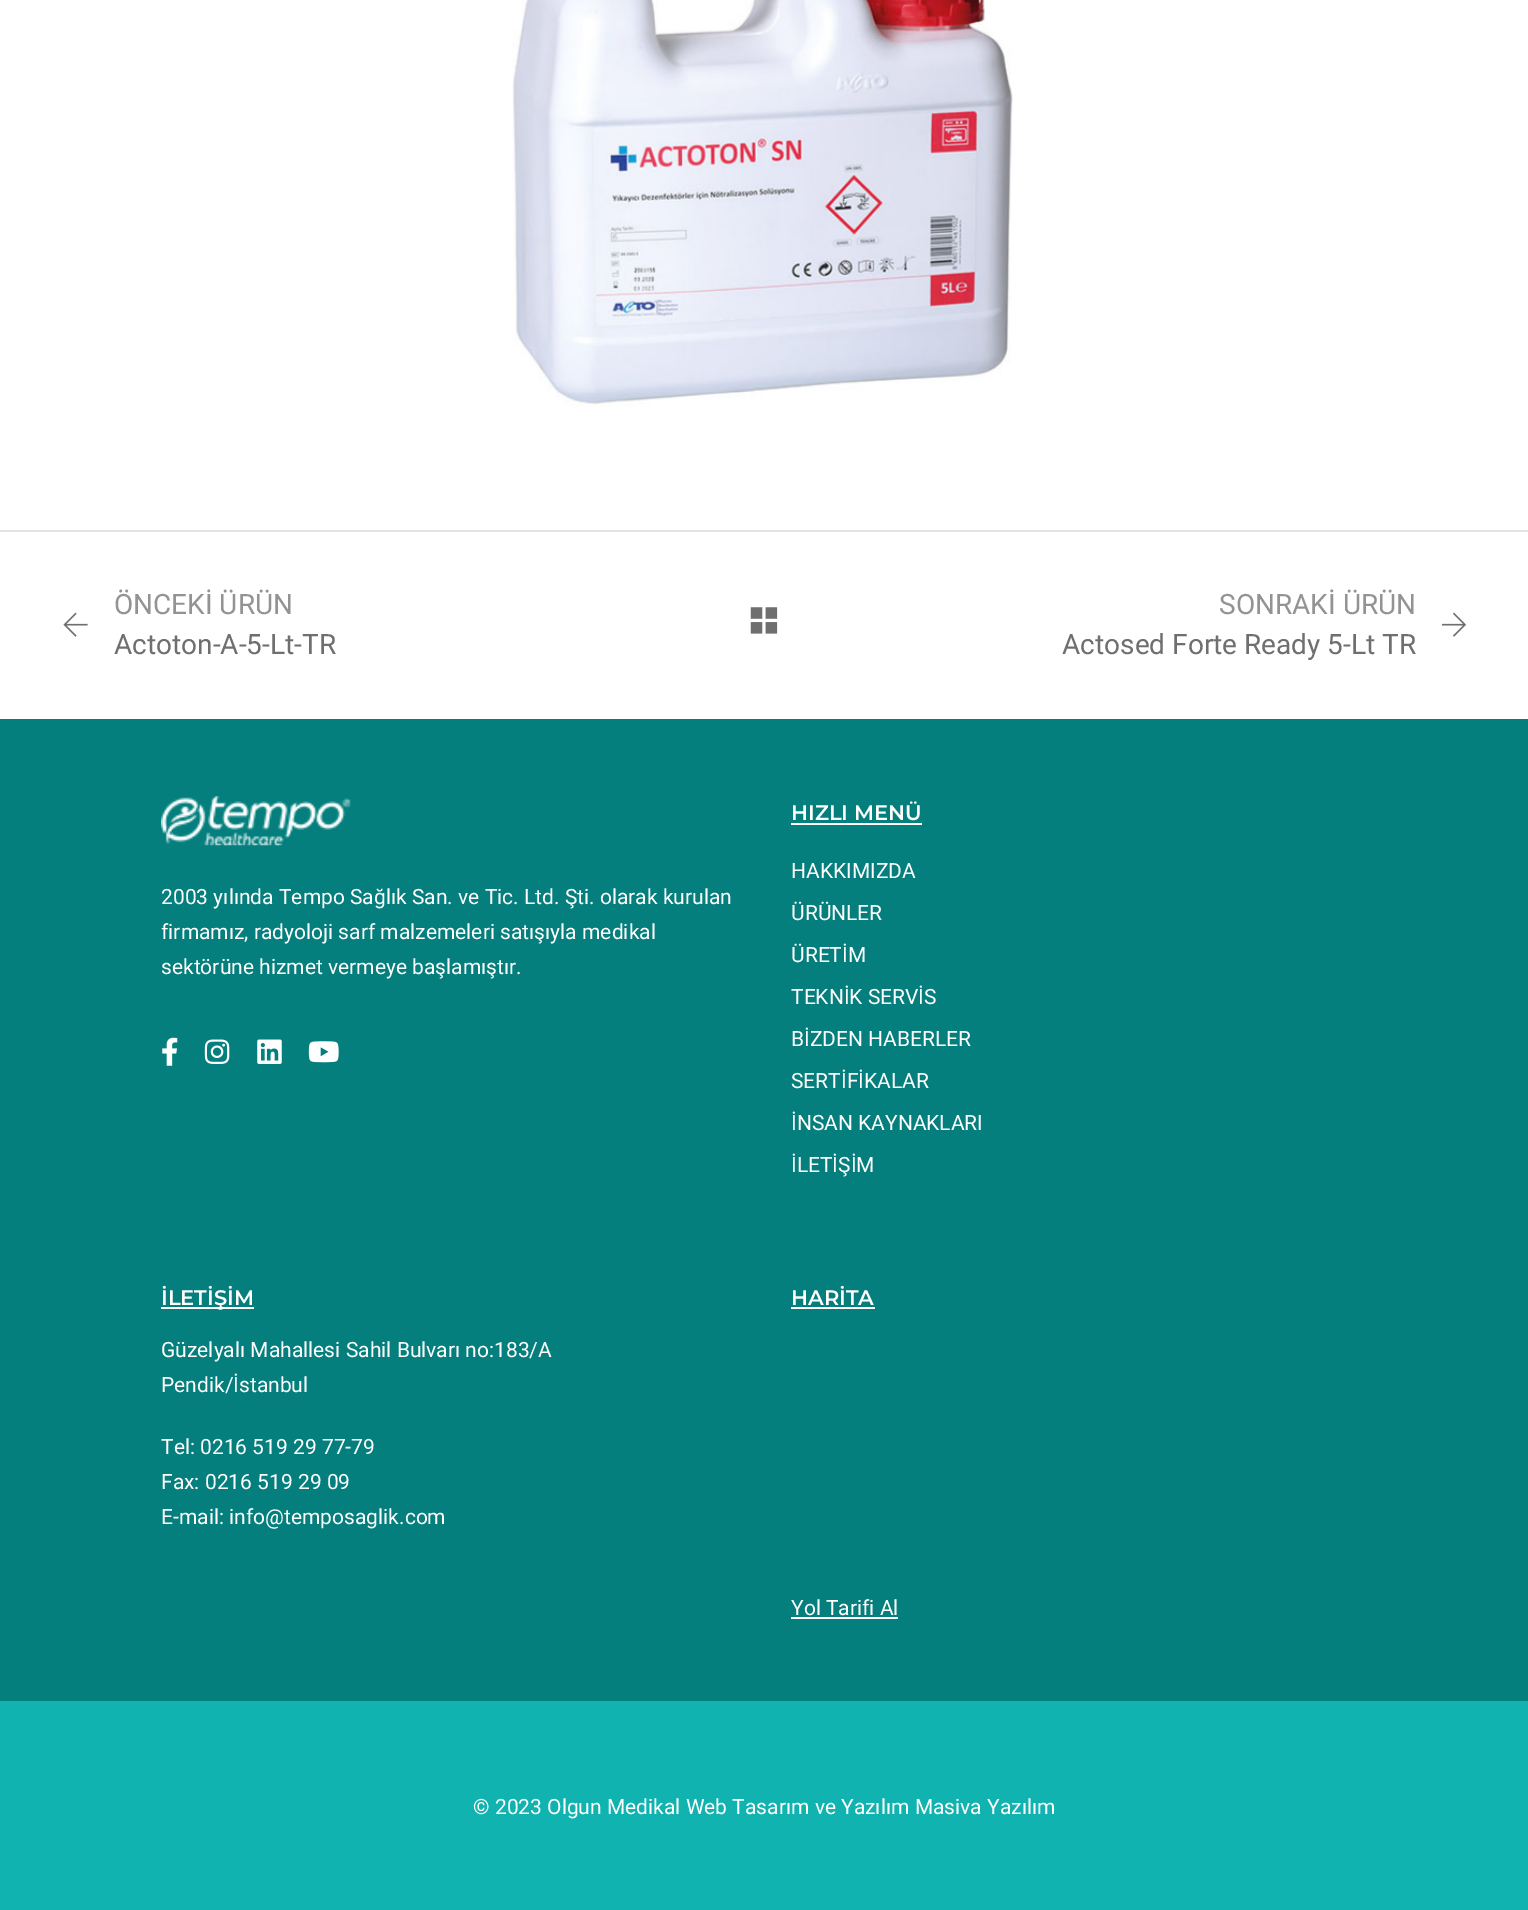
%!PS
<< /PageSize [1528 1910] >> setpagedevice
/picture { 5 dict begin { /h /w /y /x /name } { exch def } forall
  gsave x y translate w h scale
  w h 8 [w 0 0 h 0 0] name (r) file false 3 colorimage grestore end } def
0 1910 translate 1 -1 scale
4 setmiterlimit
1 setgray
0 0 1528 1910 rectfill
(img1.rgb) 512 0 501 407 picture
0.894 setgray
0 530 1528 2 rectfill
/Roboto-Regular [28 0 0 -28 0 0] selectfont
0.576 setgray
114 614 moveto (ÖNCEKİ ÜRÜN) show
(img2.rgb) 63 612 25 25 picture
0.435 setgray
114 654 moveto (Actoton-A-5-Lt-TR) show
(img3.rgb) 750 607 28 27 picture
0.576 setgray
1219 614 moveto (SONRAKİ ÜRÜN) show
(img4.rgb) 1441 612 25 25 picture
0.435 setgray
1062 654 moveto (Actosed Forte Ready 5-Lt TR) show
0.016 0.498 0.49 setrgbcolor
0 719 1528 982 rectfill
(img5.rgb) 161 796 190 50 picture
/Roboto-Regular [21 0 0 -21 0 0] selectfont
1 setgray
161 904 moveto (2003 yılında Tempo Sağlık San. ve Tic. Ltd. Şti. olarak kurulan) show
161 939 moveto (firmamız, radyoloji sarf malzemeleri satışıyla medikal) show
161 974 moveto (sektörüne hizmet vermeye başlamıştır.) show
(img6.rgb) 162 1037 16 29 picture
(img7.rgb) 204 1039 26 25 picture
(img8.rgb) 257 1039 25 25 picture
(img9.rgb) 308 1041 31 22 picture
/Montserrat-SemiBold [21 0 0 -21 0 0] selectfont
791 820 moveto (HIZLI MENÜ) show
791 823 131 2 rectfill
/Roboto-Regular [21 0 0 -21 0 0] selectfont
791 878 moveto (HAKKIMIZDA) show
791 920 moveto (ÜRÜNLER) show
791 962 moveto (ÜRETİM) show
791 1004 moveto (TEKNİK SERVİS) show
791 1046 moveto (BİZDEN HABERLER) show
791 1088 moveto (SERTİFİKALAR) show
791 1130 moveto (İNSAN KAYNAKLARI) show
791 1172 moveto (İLETİŞİM) show
161 1307 93 2 rectfill
/Montserrat-SemiBold [21 0 0 -21 0 0] selectfont
161 1305 moveto (İLETİŞİM) show
/Roboto-Regular [21 0 0 -21 0 0] selectfont
161 1357 moveto (Güzelyalı Mahallesi Sahil Bulvarı no:183/A) show
161 1392 moveto (Pendik/İstanbul) show
161 1454 moveto (Tel: 0216 519 29 77-79) show
161 1489 moveto (Fax: 0216 519 29 09) show
161 1524 moveto (E-mail: info@temposaglik.com) show
/Montserrat-SemiBold [21 0 0 -21 0 0] selectfont
791 1305 moveto (HARİTA) show
791 1307 84 2 rectfill
/Roboto-Regular [21 0 0 -21 0 0] selectfont
791 1615 moveto (Yol Tarifi Al) show
791 1617 107 2 rectfill
0.063 0.702 0.69 setrgbcolor
0 1701 1528 209 rectfill
1 setgray
473 1814 moveto (© 2023 Olgun Medikal Web Tasarım ve Yazılım Masiva Yazılım) show
showpage
